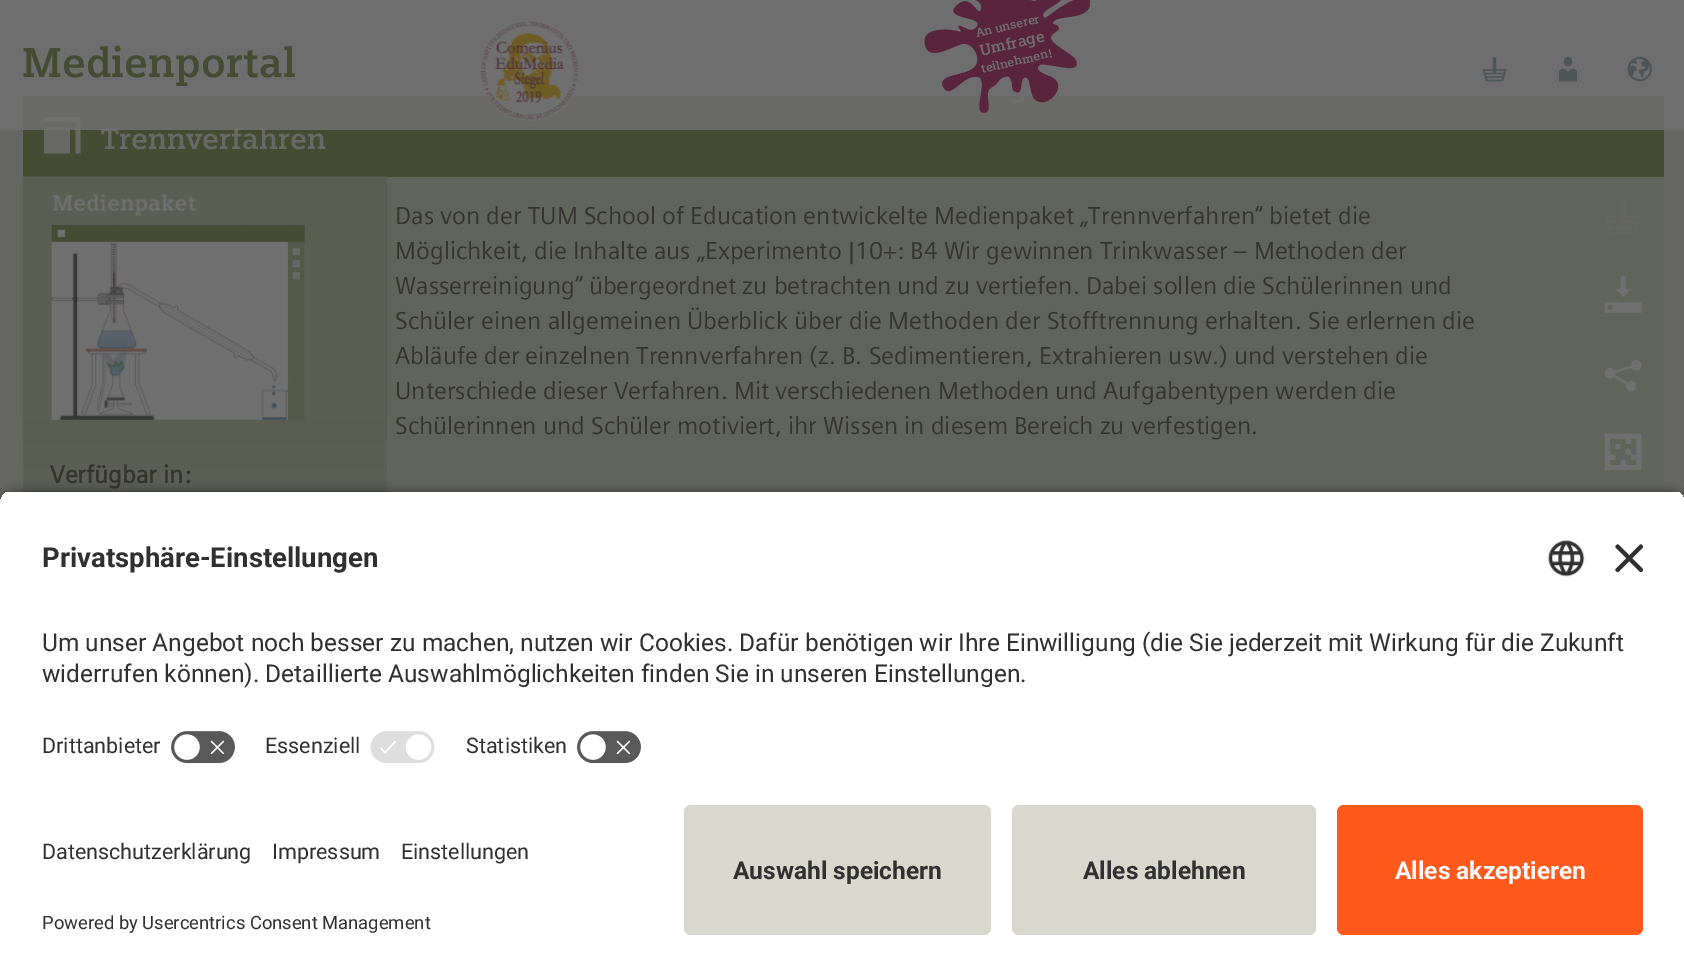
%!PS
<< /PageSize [1684 976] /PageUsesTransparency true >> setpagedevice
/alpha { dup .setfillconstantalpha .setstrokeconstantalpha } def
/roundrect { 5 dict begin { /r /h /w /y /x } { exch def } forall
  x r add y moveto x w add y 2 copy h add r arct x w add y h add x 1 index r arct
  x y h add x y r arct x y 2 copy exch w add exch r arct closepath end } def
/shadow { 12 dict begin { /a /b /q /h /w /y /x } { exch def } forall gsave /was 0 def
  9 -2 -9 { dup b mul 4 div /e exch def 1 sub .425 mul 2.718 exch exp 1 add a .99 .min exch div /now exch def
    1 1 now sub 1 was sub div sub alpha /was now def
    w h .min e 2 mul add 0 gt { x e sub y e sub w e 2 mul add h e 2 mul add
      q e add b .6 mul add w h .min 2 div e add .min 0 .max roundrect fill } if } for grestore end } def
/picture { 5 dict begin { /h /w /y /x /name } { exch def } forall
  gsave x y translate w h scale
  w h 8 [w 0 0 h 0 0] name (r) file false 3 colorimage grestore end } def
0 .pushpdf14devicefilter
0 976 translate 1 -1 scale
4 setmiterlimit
0.396 0.396 0.384 setrgbcolor
0 0 1684 976 rectfill
0.275 0.298 0.204 setrgbcolor
23 96 1641 81 rectfill
0.408 0.412 0.392 setrgbcolor
newpath 80.5 117 moveto 80.5 153.5 lineto 75.5 153.5 lineto 75.5 122 lineto 44 122 lineto 44 117 lineto closepath 44 153.5 moveto 70 153.5 lineto 70 127 lineto 44 127 lineto closepath fill
/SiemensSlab-Bold [29.75 0 0 -29.75 0 0] selectfont
101 149 moveto (Trennverfahren) show
0.85 alpha
0.439 setgray
0 0 1684 130 rectfill
/SiemensSlab-Bold [42 0 0 -42 0 0] selectfont
1 alpha
0.275 0.298 0.204 setrgbcolor
22 77 moveto (Medienportal) show
(img1.rgb) 479 20 101 101 picture
(img2.rgb) 924 0 166 113 picture
/SiemensSlab-Bold [12.25 0 0 -12.25 0 0] selectfont
0.439 setgray
gsave 977 37 translate -13 rotate 0 0 moveto (An unserer) show grestore
/SiemensSlab-Bold [15.75 0 0 -15.75 0 0] selectfont
gsave 981 56 translate -13 rotate 0 0 moveto (Umfrage) show grestore
/SiemensSlab-Bold [12.25 0 0 -12.25 0 0] selectfont
gsave 982 73 translate -13 rotate 0 0 moveto (teilnehmen!) show grestore
(img3.rgb) 1482 56 25 26 picture
(img4.rgb) 1558 56 20 26 picture
(img5.rgb) 1627 56 25 26 picture
0.38 0.392 0.357 setrgbcolor
387 177 1277 315 rectfill
/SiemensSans-Regular [24.5 0 0 -24.5 0 0] selectfont
0.212 0.204 0.192 setrgbcolor
395 224 moveto (Das von der TUM School of Education entwickelte Medienpaket „Trennverfahren“ bietet die) show
395 259 moveto (Möglichkeit, die Inhalte aus „Experimento |10+: B4 Wir gewinnen Trinkwasser – Methoden der) show
395 294 moveto (Wasserreinigung“ übergeordnet zu betrachten und zu vertiefen. Dabei sollen die Schülerinnen und) show
395 329 moveto (Schüler einen allgemeinen Überblick über die Methoden der Stofftrennung erhalten. Sie erlernen die) show
395 364 moveto (Abläufe der einzelnen Trennverfahren \(z. B. Sedimentieren, Extrahieren usw.\) und verstehen die) show
395 399 moveto (Unterschiede dieser Verfahren. Mit verschiedenen Methoden und Aufgabentypen werden die) show
395 434 moveto (Schülerinnen und Schüler motiviert, ihr Wissen in diesem Bereich zu verfestigen.) show
(img6.rgb) 1605 197 36 37 picture
(img7.rgb) 1604 276 38 37 picture
(img8.rgb) 1604 360 38 32 picture
(img9.rgb) 1604 433 38 38 picture
0.349 0.365 0.314 setrgbcolor
23 177 364 243 rectfill
(img10.rgb) 22 176 365 244 picture
gsave newpath 23 420 moveto 387 420 lineto 387 492 lineto 23 492 lineto closepath clip newpath
<< /ShadingType 2 /ColorSpace /DeviceRGB /Coords [205 420 205 662] /Extend [true true] /Function << /FunctionType 2 /Domain [0 1] /C0 [0.353 0.369 0.322] /C1 [0.38 0.392 0.357] /N 1 >> >> shfill grestore
/SiemensSans-Bold [24.5 0 0 -24.5 0 0] selectfont
0.212 0.204 0.192 setrgbcolor
50 483 moveto (Verfügbar in:) show
0 setgray
0 495 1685 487 14 6 0.8 shadow
gsave
newpath 14 490 moveto 1671 490 lineto 1678.5 490 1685 496.5 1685 504 curveto 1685 791 lineto 0 791 lineto 0 504 lineto 0 496.5 6.5 490 14 490 curveto closepath clip newpath
1 setgray
0 492 1684 299 rectfill
0 492 1684 229 rectfill
grestore
/Roboto-Bold [27.5 0 0 -27.5 0 0] selectfont
0.188 setgray
42 567 moveto (Privatsphäre-Einstellungen) show
(img11.rgb) 1548 540 37 37 picture
(img12.rgb) 1615 544 28 28 picture
/Roboto-Regular [24.5 0 0 -24.5 0 0] selectfont
42 651 moveto (Um unser Angebot noch besser zu machen, nutzen wir Cookies. Dafür benötigen wir Ihre Einwilligung \(die Sie jederzeit mit Wirkung für die Zukunft) show
42 682 moveto (widerrufen können\). Detaillierte Auswahlmöglichkeiten finden Sie in unseren Einstellungen.) show
/Roboto-Regular [21.5 0 0 -21.5 0 0] selectfont
42 753 moveto (Drittanbieter) show
(img13.rgb) 171 731 64 33 picture
265 753 moveto (Essenziell) show
(img14.rgb) 370 731 65 32 picture
466 753 moveto (Statistiken) show
(img13.rgb) 577 731 64 33 picture
1 setgray
0 791 1684 185 rectfill
0.188 setgray
42 859 moveto (Datenschutzerklärung) show
272 859 moveto (Impressum) show
401 859 moveto (Einstellungen) show
/Roboto-Regular [18.4 0 0 -18.4 0 0] selectfont
42 929 moveto (Powered by Usercentrics Consent Management) show
0.851 0.847 0.808 setrgbcolor
684 805 307 130 7 roundrect fill
/Roboto-Bold [24.5 0 0 -24.5 0 0] selectfont
0.188 setgray
733 879 moveto (Auswahl speichern) show
0.851 0.847 0.808 setrgbcolor
1012 805 304 130 7 roundrect fill
0.188 setgray
1083 879 moveto (Alles ablehnen) show
1 0.353 0.106 setrgbcolor
1337 805 306 130 7 roundrect fill
0.98 setgray
1395 879 moveto (Alles akzeptieren) show
.poppdf14devicefilter showpage
